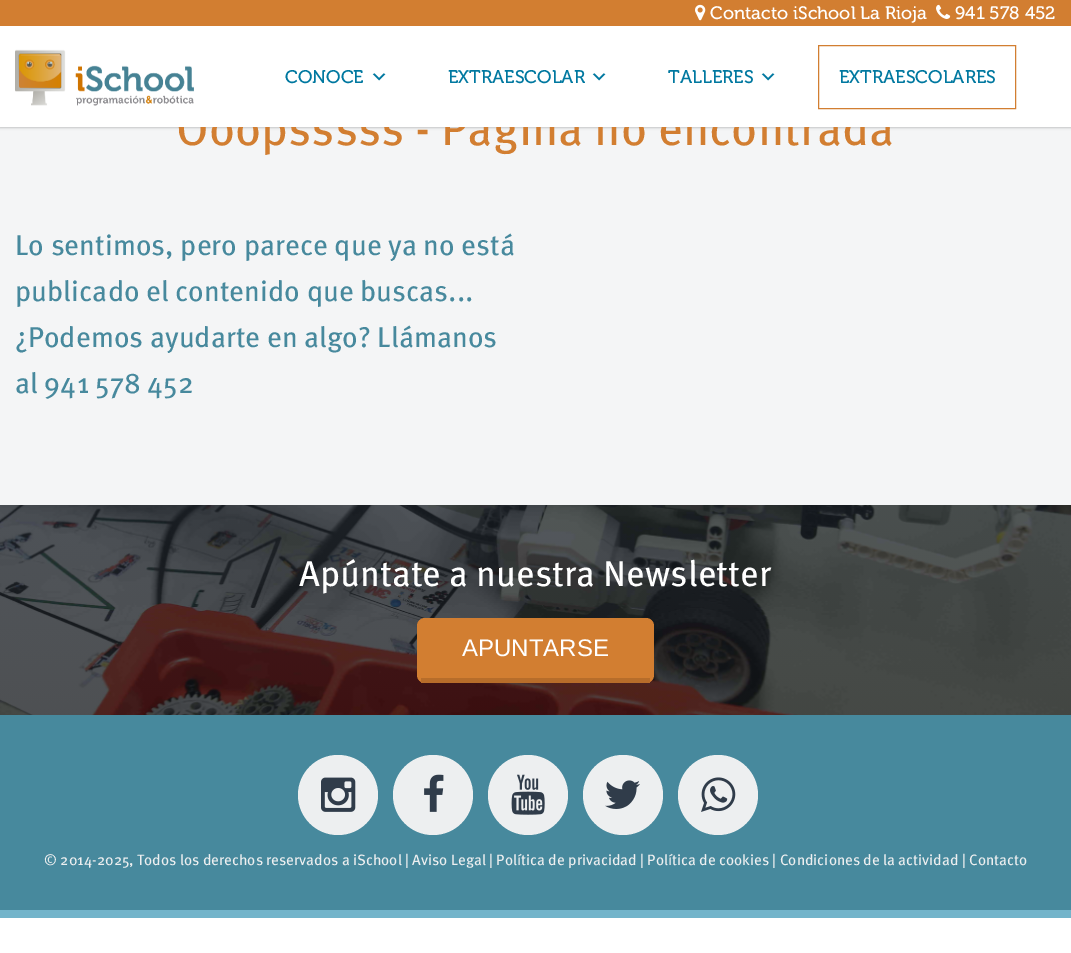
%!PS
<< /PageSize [1071 953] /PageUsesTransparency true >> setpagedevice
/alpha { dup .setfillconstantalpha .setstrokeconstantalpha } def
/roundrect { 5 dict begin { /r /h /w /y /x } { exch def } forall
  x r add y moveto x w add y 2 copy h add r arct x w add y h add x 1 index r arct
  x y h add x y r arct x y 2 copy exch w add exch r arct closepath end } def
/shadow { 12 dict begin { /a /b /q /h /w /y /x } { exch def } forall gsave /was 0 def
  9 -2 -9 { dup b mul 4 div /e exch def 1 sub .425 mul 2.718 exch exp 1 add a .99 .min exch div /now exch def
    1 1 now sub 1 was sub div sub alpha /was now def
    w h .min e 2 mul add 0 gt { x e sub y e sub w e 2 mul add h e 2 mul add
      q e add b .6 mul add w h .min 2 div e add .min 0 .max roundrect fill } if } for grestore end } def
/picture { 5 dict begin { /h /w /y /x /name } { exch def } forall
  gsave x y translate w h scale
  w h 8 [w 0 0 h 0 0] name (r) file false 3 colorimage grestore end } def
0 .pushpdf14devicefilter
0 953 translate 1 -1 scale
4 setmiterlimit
1 setgray
0 0 1071 953 rectfill
0.957 0.961 0.965 setrgbcolor
0 127 1071 378 rectfill
0 setgray
0 0 1071 127 0 1.5 0.33 shadow
/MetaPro-Regular [48 0 0 -48 0 0] selectfont
0.824 0.494 0.192 setrgbcolor
176 145 moveto (Ooopsssss - Página no encontrada) show
1 setgray
0 26 1071 101 rectfill
0.824 0.494 0.192 setrgbcolor
0 0 1071 26 rectfill
(img1.rgb) 695 4 11 17 picture
/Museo-Regular [18 0 0 -18 0 0] selectfont
1 setgray
710 19 moveto (Contacto iSchool La Rioja) show
(img2.rgb) 936 4 15 15 picture
955 19 moveto (941 578 452) show
(img3.rgb) 15 49 179 57 picture
/Museo-Regular [18.25 0 0 -18.25 0 0] selectfont
0 0.471 0.627 setrgbcolor
285 83 moveto (CONOCE) show
(img4.rgb) 372 73 14 8 picture
448 83 moveto (EXTRAESCOLAR) show
(img4.rgb) 592 73 14 8 picture
668 83 moveto (TALLERES) show
(img4.rgb) 761 73 14 8 picture
0.824 0.494 0.192 setrgbcolor
818.5 45.5 197 63 rectstroke
0 0.471 0.627 setrgbcolor
839 83 moveto (EXTRAESCOLARES) show
/MetaPro-Regular [28.75 0 0 -28.75 0 0] selectfont
0.278 0.537 0.616 setrgbcolor
15 255 moveto (Lo sentimos, pero parece que ya no está) show
15 301 moveto (publicado el contenido que buscas...) show
15 347 moveto (¿Podemos ayudarte en algo? Llámanos) show
15 393 moveto (al 941 578 452) show
(img5.rgb) 0 505 1071 210 picture
/MetaPro-Regular [36 0 0 -36 0 0] selectfont
1 setgray
299 586 moveto (Apúntate a nuestra Newsletter) show
0.824 0.494 0.192 setrgbcolor
417 618 237 65 8 roundrect fill
0.718 0.427 0.165 setrgbcolor
421 678 229 5 rectfill
/LiberationSans-Regular [24 0 0 -24 0 0] selectfont
1 setgray
462 656 moveto (APUNTARSE) show
0.278 0.537 0.616 setrgbcolor
0 715 1071 195 rectfill
0.451 0.706 0.792 setrgbcolor
0 910 1071 8 rectfill
0.929 0.937 0.941 setrgbcolor
newpath 338 795 40 0 360 arc closepath fill
(img6.rgb) 321 777 35 35 picture
newpath 433 795 40 0 360 arc closepath fill
(img7.rgb) 424 774 20 38 picture
newpath 528 795 40 0 360 arc closepath fill
(img8.rgb) 511 774 34 41 picture
newpath 623 795 40 0 360 arc closepath fill
(img9.rgb) 605 780 35 29 picture
newpath 718 795 40 0 360 arc closepath fill
(img10.rgb) 701 777 35 35 picture
/MetaPro-Regular [15 0 0 -15 0 0] selectfont
44 865 moveto (© 2014-2025, Todos los derechos reservados a iSchool | Aviso Legal | Política de privacidad | Política de cookies | Condiciones de la actividad | Contacto) show
.poppdf14devicefilter showpage
